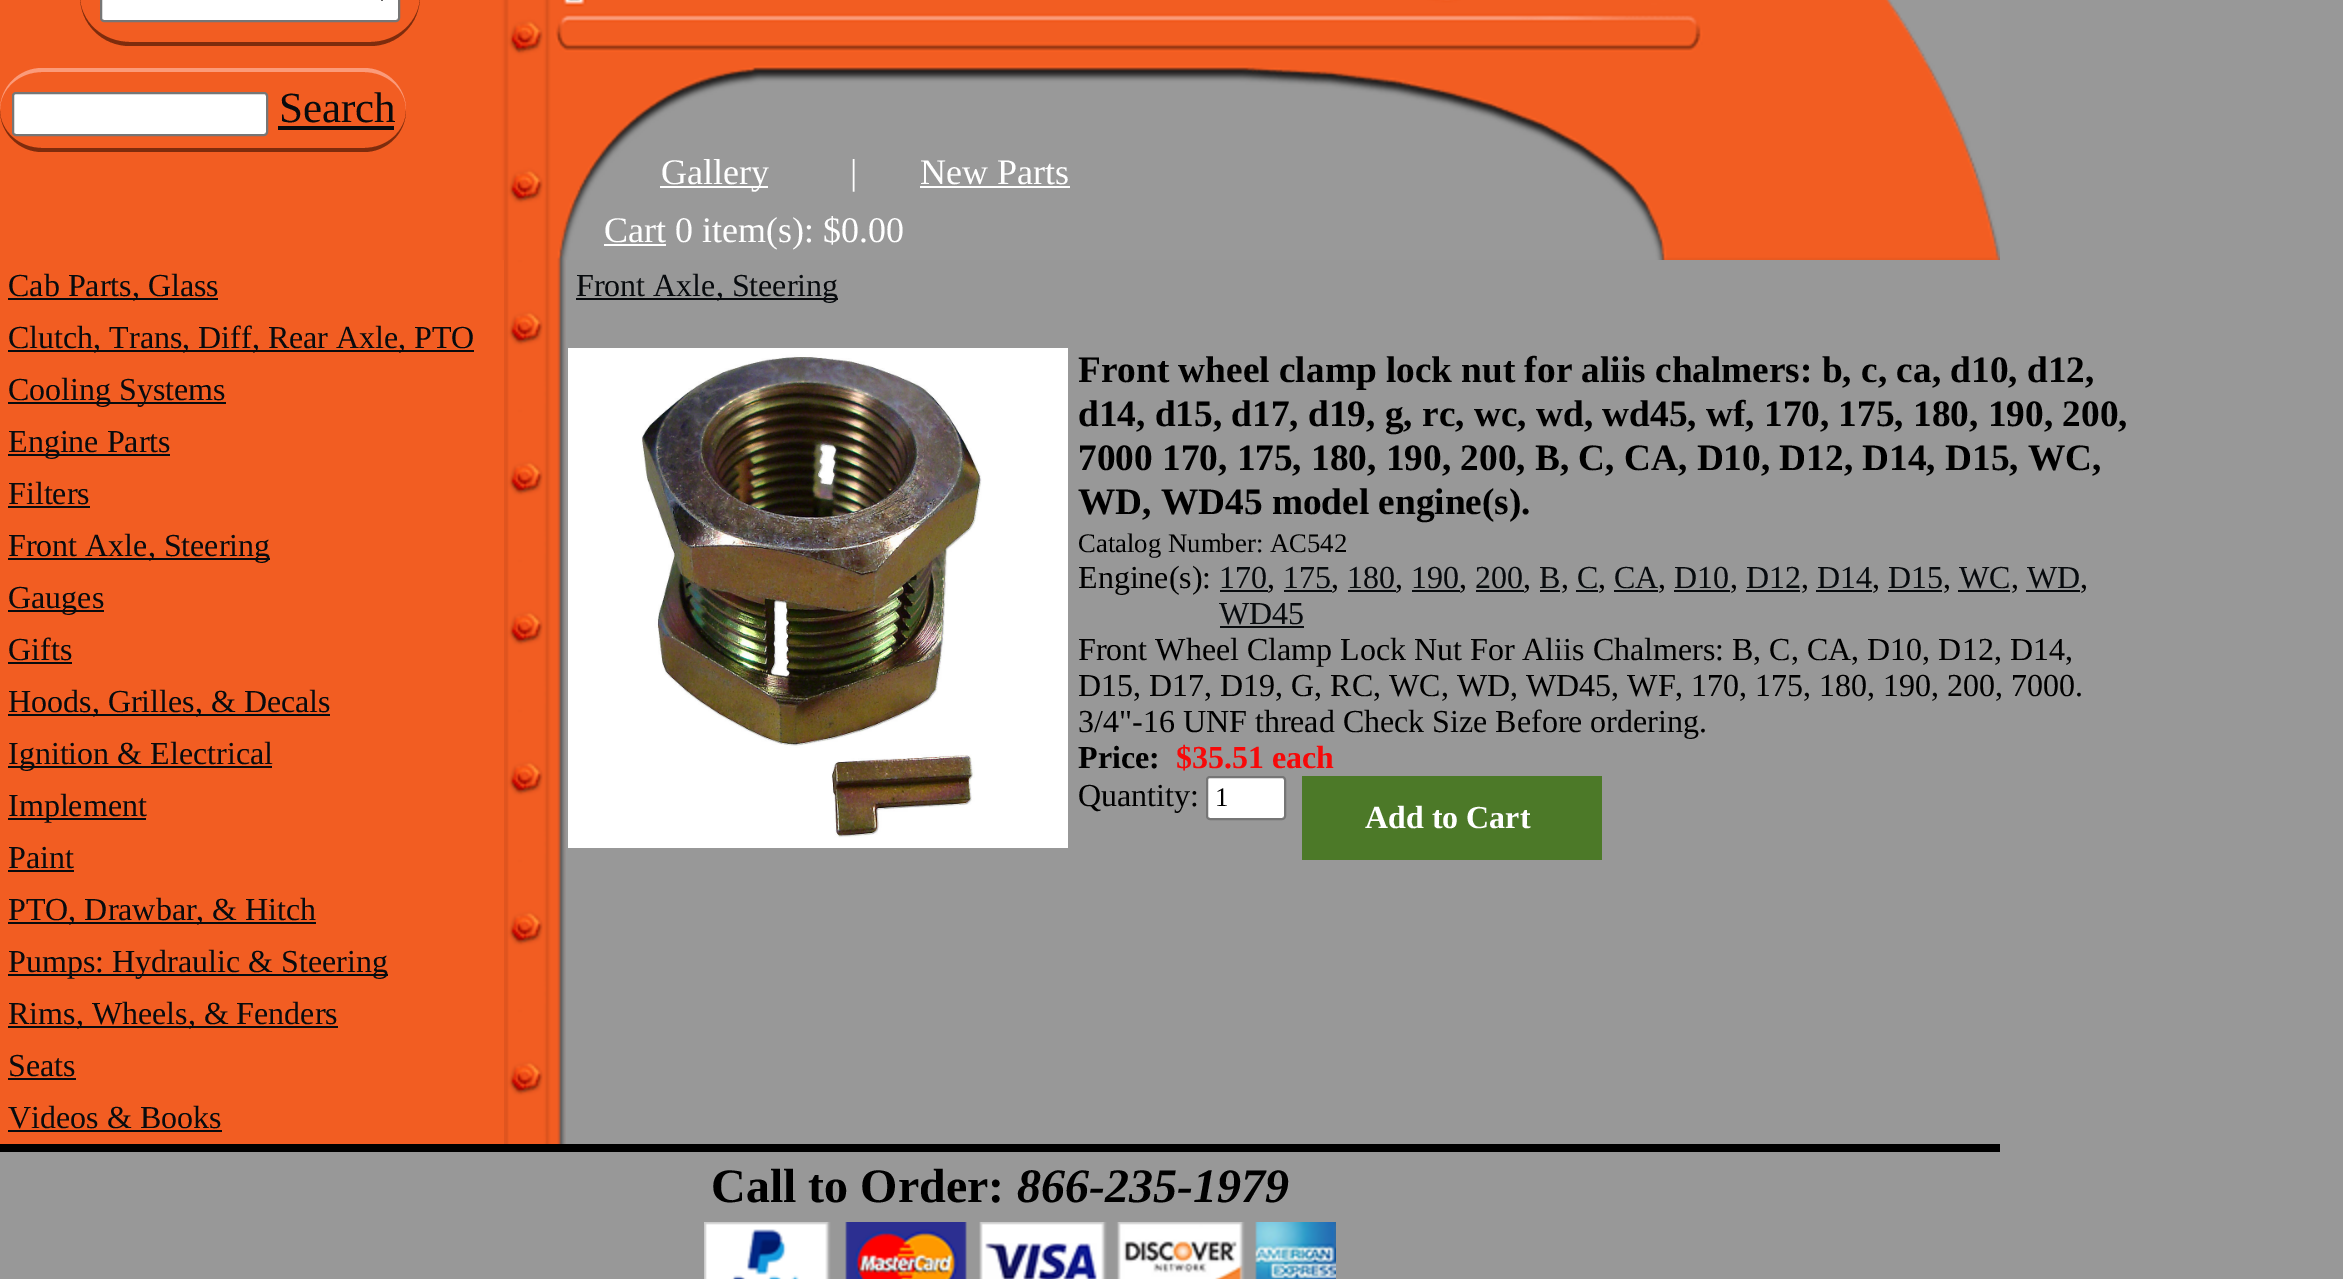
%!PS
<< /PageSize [2343 1279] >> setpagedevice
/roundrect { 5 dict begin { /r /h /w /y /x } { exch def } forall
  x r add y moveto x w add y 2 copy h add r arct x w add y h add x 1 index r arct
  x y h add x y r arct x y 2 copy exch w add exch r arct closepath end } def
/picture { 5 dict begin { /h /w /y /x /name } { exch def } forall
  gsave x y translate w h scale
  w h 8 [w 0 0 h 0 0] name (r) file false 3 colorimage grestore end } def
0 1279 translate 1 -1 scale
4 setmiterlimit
0.596 setgray
0 0 2343 1279 rectfill
(img1.rgb) 0 0 2000 260 picture
0.494 0.173 0.051 setrgbcolor
newpath 370 46 moveto 398 46 420 24 420 -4 curveto 420 21 398 42 370 42 curveto 130 42 lineto 102 42 80 21 80 -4 curveto 80 24 102 46 130 46 curveto closepath fill
1 setgray
101 -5 298 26 3 roundrect gsave fill grestore
0.463 setgray
2 setlinewidth
stroke
0 setgray
4 setlinewidth
newpath 374 -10 moveto 382 -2 lineto 390 -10 lineto stroke
0.984 0.608 0.478 setrgbcolor
newpath 42 68 moveto 19 68 0 87 0 110 curveto 0 89 19 72 42 72 curveto 364 72 lineto 387 72 406 89 406 110 curveto 406 87 387 68 364 68 curveto closepath fill
0.494 0.173 0.051 setrgbcolor
newpath 42 152 moveto 364 152 lineto 387 152 406 133 406 110 curveto 406 131 387 148 364 148 curveto 42 148 lineto 19 148 0 131 0 110 curveto 0 133 19 152 42 152 curveto closepath fill
1 setgray
13 93 254 42 3 roundrect gsave fill grestore
0.463 setgray
2 setlinewidth
stroke
/LiberationSerif-Regular [43 0 0 -43 0 0] selectfont
0.031 0.043 0.055 setrgbcolor
279 122 moveto (Search) show
278 126 116 4 rectfill
1 setgray
660 186 108 2 rectfill
/LiberationSerif-Regular [36 0 0 -36 0 0] selectfont
661 184 moveto (Gallery) show
850 184 moveto (|) show
920 184 moveto (New Parts) show
920 186 150 2 rectfill
604 244 62 2 rectfill
604 242 moveto (Cart 0 item\(s\): $0.00) show
0.949 0.365 0.133 setrgbcolor
0 260 504 884 rectfill
0.031 0.043 0.055 setrgbcolor
8 298 210 2 rectfill
/LiberationSerif-Regular [32 0 0 -32 0 0] selectfont
8 296 moveto (Cab Parts, Glass) show
8 350 466 2 rectfill
8 348 moveto (Clutch, Trans, Diff, Rear Axle, PTO) show
8 402 218 2 rectfill
8 400 moveto (Cooling Systems) show
8 454 162 2 rectfill
8 452 moveto (Engine Parts) show
8 504 moveto (Filters) show
8 506 82 2 rectfill
8 558 262 2 rectfill
8 556 moveto (Front Axle, Steering) show
8 610 96 2 rectfill
8 608 moveto (Gauges) show
8 660 moveto (Gifts) show
8 662 64 2 rectfill
8 714 322 2 rectfill
8 712 moveto (Hoods, Grilles, & Decals) show
8 766 264 2 rectfill
8 764 moveto (Ignition & Electrical) show
8 818 138 2 rectfill
8 816 moveto (Implement) show
8 868 moveto (Paint) show
8 870 66 2 rectfill
8 922 308 2 rectfill
8 920 moveto (PTO, Drawbar, & Hitch) show
8 974 380 2 rectfill
8 972 moveto (Pumps: Hydraulic & Steering) show
8 1026 330 2 rectfill
8 1024 moveto (Rims, Wheels, & Fenders) show
8 1076 moveto (Seats) show
8 1078 68 2 rectfill
8 1128 moveto (Videos & Books) show
8 1130 214 2 rectfill
(img2.rgb) 504 260 62 884 picture
576 298 262 2 rectfill
576 296 moveto (Front Axle, Steering) show
(img3.rgb) 568 348 500 500 picture
/LiberationSerif-Bold [37.3 0 0 -37.3 0 0] selectfont
0 setgray
1078 382 moveto (Front wheel clamp lock nut for aliis chalmers: b, c, ca, d10, d12,) show
1078 426 moveto (d14, d15, d17, d19, g, rc, wc, wd, wd45, wf, 170, 175, 180, 190, 200,) show
1078 470 moveto (7000 170, 175, 180, 190, 200, B, C, CA, D10, D12, D14, D15, WC,) show
1078 514 moveto (WD, WD45 model engine\(s\).) show
/LiberationSerif-Regular [26.75 0 0 -26.75 0 0] selectfont
1078 552 moveto (Catalog Number: AC542) show
/LiberationSerif-Regular [32 0 0 -32 0 0] selectfont
1078 588 moveto (Engine\(s\):) show
0.031 0.043 0.055 setrgbcolor
1219 588 moveto (170) show
1220 590 48 2 rectfill
0 setgray
1267 588 moveto (,) show
0.031 0.043 0.055 setrgbcolor
1283 588 moveto (175) show
1284 590 48 2 rectfill
0 setgray
1331 588 moveto (,) show
0.031 0.043 0.055 setrgbcolor
1347 588 moveto (180) show
1348 590 48 2 rectfill
0 setgray
1395 588 moveto (,) show
0.031 0.043 0.055 setrgbcolor
1411 588 moveto (190) show
1412 590 48 2 rectfill
0 setgray
1459 588 moveto (,) show
0.031 0.043 0.055 setrgbcolor
1475 588 moveto (200) show
1476 590 48 2 rectfill
0 setgray
1523 588 moveto (,) show
0.031 0.043 0.055 setrgbcolor
1539 588 moveto (B) show
1540 590 20 2 rectfill
0 setgray
1561 588 moveto (,) show
0.031 0.043 0.055 setrgbcolor
1577 588 moveto (C) show
1576 590 22 2 rectfill
0 setgray
1598 588 moveto (,) show
0.031 0.043 0.055 setrgbcolor
1614 588 moveto (CA) show
1614 590 44 2 rectfill
0 setgray
1658 588 moveto (,) show
0.031 0.043 0.055 setrgbcolor
1674 588 moveto (D10) show
1674 590 56 2 rectfill
0 setgray
1730 588 moveto (,) show
0.031 0.043 0.055 setrgbcolor
1746 588 moveto (D12) show
1746 590 54 2 rectfill
0 setgray
1801 588 moveto (,) show
0.031 0.043 0.055 setrgbcolor
1817 588 moveto (D14) show
1816 590 56 2 rectfill
0 setgray
1872 588 moveto (,) show
0.031 0.043 0.055 setrgbcolor
1888 588 moveto (D15) show
1888 590 54 2 rectfill
0 setgray
1943 588 moveto (,) show
0.031 0.043 0.055 setrgbcolor
1959 588 moveto (WC) show
1958 590 52 2 rectfill
0 setgray
2011 588 moveto (,) show
0.031 0.043 0.055 setrgbcolor
2027 588 moveto (WD) show
2026 590 54 2 rectfill
0 setgray
2080 588 moveto (,) show
0.031 0.043 0.055 setrgbcolor
1219 624 moveto (WD45) show
1220 626 84 2 rectfill
0 setgray
1078 660 moveto (Front Wheel Clamp Lock Nut For Aliis Chalmers: B, C, CA, D10, D12, D14,) show
1078 696 moveto (D15, D17, D19, G, RC, WC, WD, WD45, WF, 170, 175, 180, 190, 200, 7000.) show
1078 732 moveto (3/4"-16 UNF thread Check Size Before ordering.) show
/LiberationSerif-Bold [32 0 0 -32 0 0] selectfont
1078 768 moveto (Price:) show
0.969 0.035 0.035 setrgbcolor
1176 768 moveto ($35.51 each) show
/LiberationSerif-Regular [32 0 0 -32 0 0] selectfont
0 setgray
1078 806 moveto (Quantity:) show
1 setgray
1207 777 78 42 3 roundrect gsave fill grestore
0.463 setgray
stroke
/LiberationSerif-Regular [26.75 0 0 -26.75 0 0] selectfont
0 setgray
1215 806 moveto (1) show
0.298 0.475 0.157 setrgbcolor
1302 776 300 84 rectfill
/LiberationSerif-Bold [32 0 0 -32 0 0] selectfont
1 setgray
1365 828 moveto (Add to Cart) show
0 setgray
0 1144 2000 8 rectfill
/LiberationSerif-Bold [48 0 0 -48 0 0] selectfont
711 1202 moveto (Call to Order:) show
/LiberationSerif-BoldItalic [48 0 0 -48 0 0] selectfont
1017 1202 moveto (866-235-1979) show
(img4.rgb) 704 1222 632 57 picture
showpage
